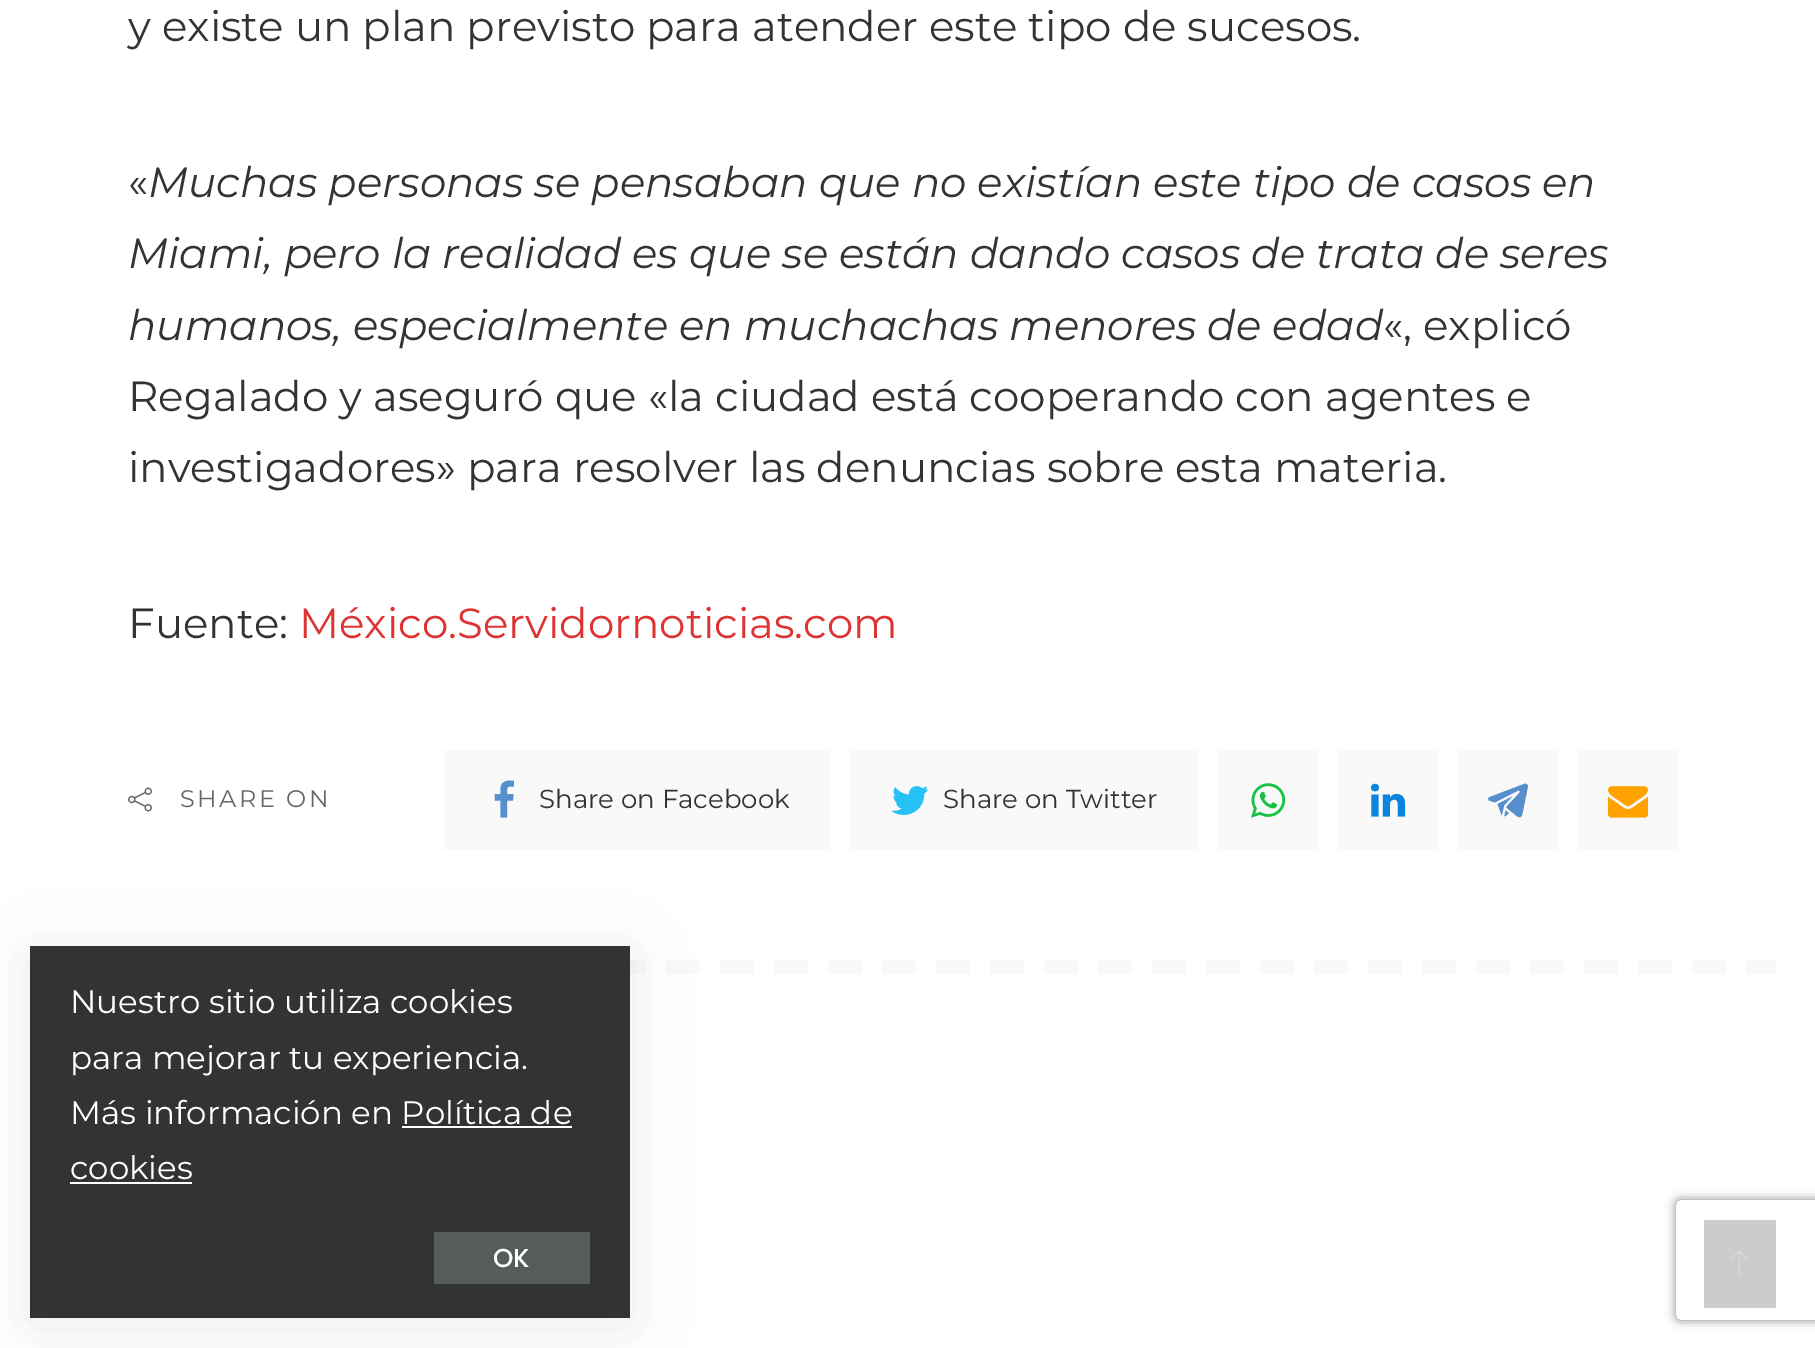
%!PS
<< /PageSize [1815 1348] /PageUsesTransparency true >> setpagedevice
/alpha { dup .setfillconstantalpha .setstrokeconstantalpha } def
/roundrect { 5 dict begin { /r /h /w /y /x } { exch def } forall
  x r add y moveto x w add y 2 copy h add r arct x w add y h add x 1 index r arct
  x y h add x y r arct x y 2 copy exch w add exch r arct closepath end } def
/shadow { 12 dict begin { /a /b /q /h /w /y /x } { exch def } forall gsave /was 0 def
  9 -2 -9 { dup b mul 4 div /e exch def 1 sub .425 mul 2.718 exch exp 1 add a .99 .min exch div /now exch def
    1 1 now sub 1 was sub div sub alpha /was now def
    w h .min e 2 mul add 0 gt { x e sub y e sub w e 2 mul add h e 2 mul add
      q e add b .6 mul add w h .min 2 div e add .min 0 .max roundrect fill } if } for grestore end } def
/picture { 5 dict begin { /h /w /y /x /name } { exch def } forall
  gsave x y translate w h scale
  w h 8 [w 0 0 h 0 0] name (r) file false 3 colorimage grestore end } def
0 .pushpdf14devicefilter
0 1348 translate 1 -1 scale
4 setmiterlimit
1 setgray
0 0 1815 1348 rectfill
/Montserrat-Regular [42 0 0 -42 0 0] selectfont
0.2 setgray
128 41 moveto (y existe un plan previsto para atender este tipo de sucesos.) show
128 197 moveto («) show
/Montserrat-Italic [42 0 0 -42 0 0] selectfont
148 197 moveto (Muchas personas se pensaban que no existían este tipo de casos en) show
128 268 moveto (Miami, pero la realidad es que se están dando casos de trata de seres) show
128 340 moveto (humanos, especialmente en muchachas menores de edad) show
/Montserrat-Regular [42 0 0 -42 0 0] selectfont
1383 340 moveto («, explicó) show
128 411 moveto (Regalado y aseguró que «la ciudad está cooperando con agentes e) show
128 482 moveto (investigadores» para resolver las denuncias sobre esta materia.) show
128 638 moveto (Fuente:) show
0.867 0.2 0.2 setrgbcolor
299 638 moveto (México.Servidornoticias.com) show
(img1.rgb) 128 787 24 25 picture
/Montserrat-Regular [24 0 0 -24 0 0] selectfont
0.4 setgray
180 807 moveto 2.5 0 (SHARE ON) ashow
0.976 setgray
444 750 386 100 rectfill
(img2.rgb) 494 780 20 38 picture
/Montserrat-Regular [26 0 0 -26 0 0] selectfont
0.2 setgray
539 808 moveto (Share on Facebook) show
0.976 setgray
850 750 348 100 rectfill
(img3.rgb) 892 786 36 29 picture
0.2 setgray
943 808 moveto (Share on Twitter) show
0.976 setgray
1218 750 100 100 rectfill
(img4.rgb) 1251 783 35 35 picture
1338 750 100 100 rectfill
(img5.rgb) 1370 783 36 34 picture
1458 750 100 100 rectfill
(img6.rgb) 1488 783 40 35 picture
1578 750 100 100 rectfill
(img7.rgb) 1608 786 40 32 picture
(img8.rgb) 630 960 1146 14 picture
0 setgray
30 954 600 372 0 30 0.07 shadow
0.2 setgray
30 946 600 372 rectfill
/Montserrat-Regular [32.5 0 0 -32.5 0 0] selectfont
1 setgray
70 1013 moveto (Nuestro sitio utiliza cookies) show
70 1069 moveto (para mejorar tu experiencia.) show
70 1124 moveto (Más información en Política de) show
70 1179 moveto (cookies) show
402 1126 170 2 rectfill
70 1182 122 2 rectfill
0.337 0.361 0.361 setrgbcolor
434 1232 156 52 rectfill
/Poppins-Medium [26 0 0 -26 0 0] selectfont
1 setgray
493 1267 moveto (OK) show
gsave
newpath 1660 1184 moveto 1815 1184 lineto 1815 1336 lineto 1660 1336 lineto closepath 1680 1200 moveto 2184 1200 lineto 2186 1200 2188 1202 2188 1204 curveto 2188 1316 lineto 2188 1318 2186 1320 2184 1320 curveto 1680 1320 lineto 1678 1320 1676 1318 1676 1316 curveto 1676 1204 lineto 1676 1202 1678 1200 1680 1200 curveto closepath eoclip newpath
0.502 setgray
1676 1200 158 120 4 5 1 shadow
grestore
0.8 setgray
1704 1220 72 88 rectfill
(img9.rgb) 1730 1250 19 26 picture
.poppdf14devicefilter showpage
